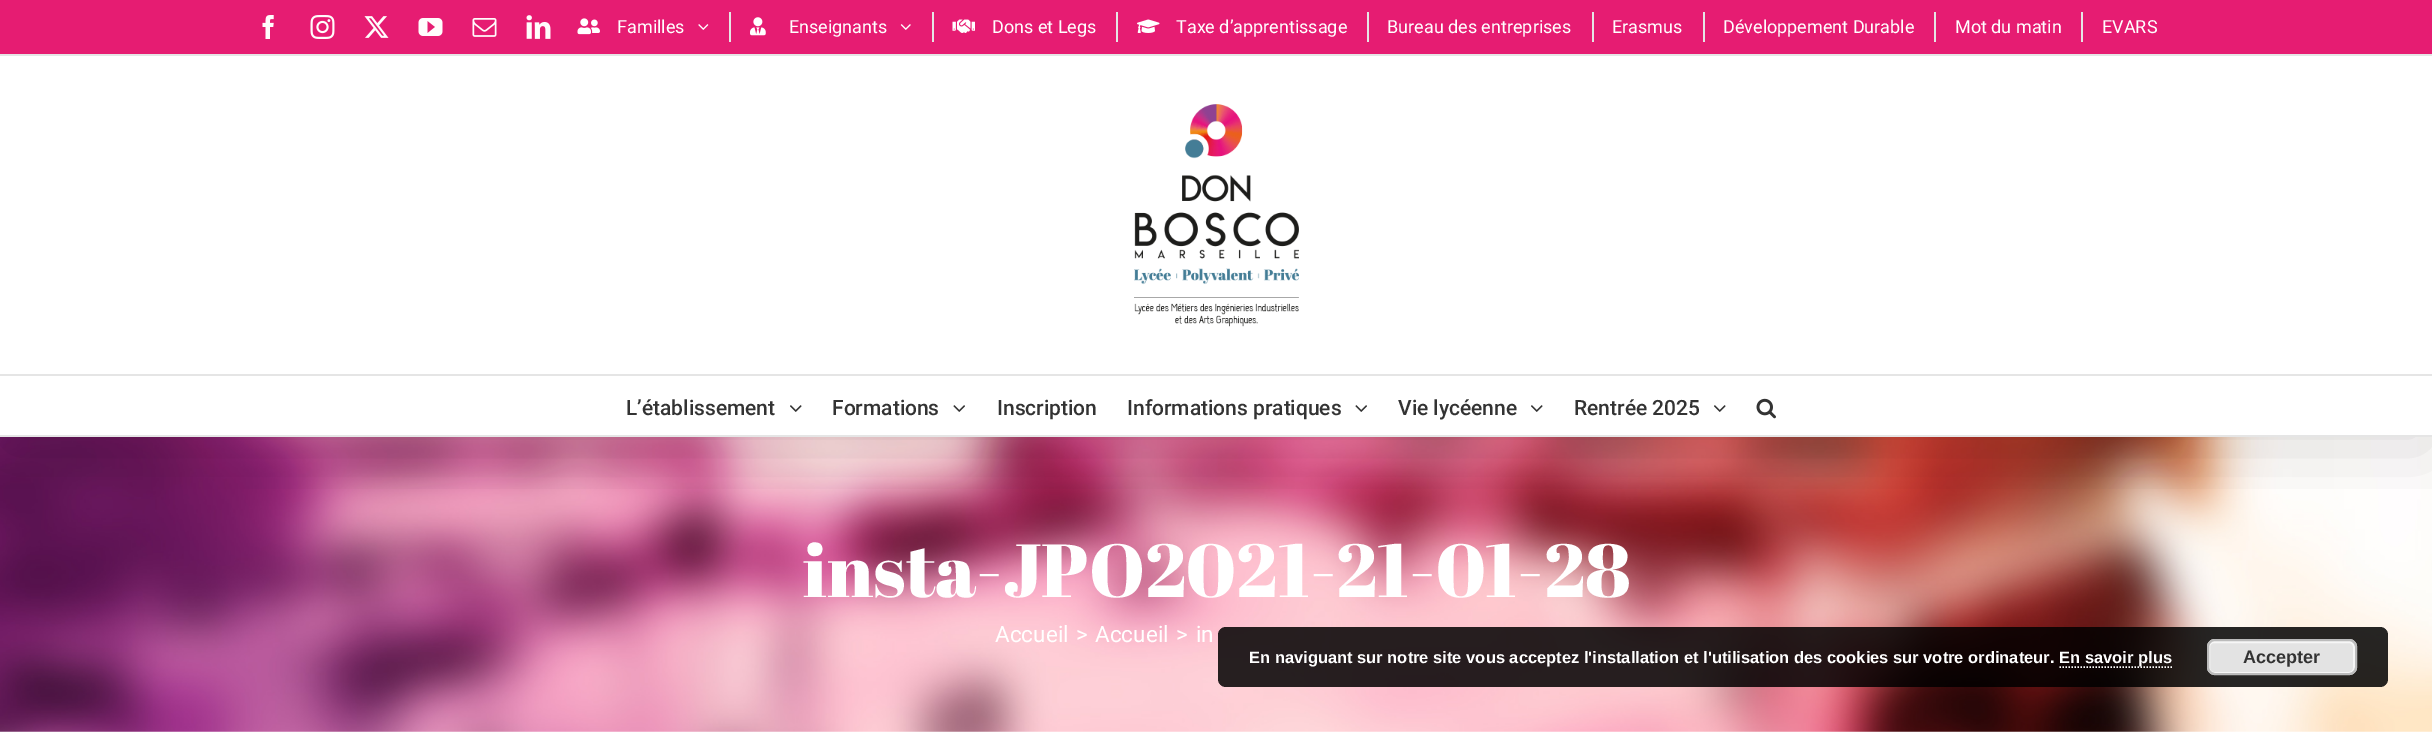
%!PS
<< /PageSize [2432 732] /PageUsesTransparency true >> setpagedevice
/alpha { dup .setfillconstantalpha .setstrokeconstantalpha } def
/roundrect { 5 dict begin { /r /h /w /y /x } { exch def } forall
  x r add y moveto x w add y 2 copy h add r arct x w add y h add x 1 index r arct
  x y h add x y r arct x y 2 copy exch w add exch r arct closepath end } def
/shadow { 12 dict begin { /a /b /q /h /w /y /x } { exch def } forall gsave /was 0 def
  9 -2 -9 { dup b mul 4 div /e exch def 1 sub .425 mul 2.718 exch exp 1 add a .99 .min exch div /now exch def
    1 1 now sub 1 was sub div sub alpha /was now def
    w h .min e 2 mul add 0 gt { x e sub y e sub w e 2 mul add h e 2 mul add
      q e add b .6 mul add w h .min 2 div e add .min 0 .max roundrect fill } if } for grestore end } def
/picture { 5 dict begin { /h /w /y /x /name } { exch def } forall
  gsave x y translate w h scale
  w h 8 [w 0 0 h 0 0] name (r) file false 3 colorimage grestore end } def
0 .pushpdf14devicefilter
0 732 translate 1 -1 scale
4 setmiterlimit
1 setgray
0 0 2432 732 rectfill
(img17.rgb) 0 437 2432 295 picture
gsave
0 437 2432 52 rectclip
0 setgray
3 18 2427 431 0 37.5 0.14 shadow
grestore
0.902 0.11 0.447 setrgbcolor
0 0 2432 54 rectfill
0.898 setgray
0 54 2432 2 rectfill
(img1.rgb) 262 15 12 24 picture
(img2.rgb) 310 15 25 24 picture
(img3.rgb) 364 16 25 22 picture
(img4.rgb) 418 18 25 18 picture
(img5.rgb) 472 18 25 19 picture
(img6.rgb) 526 15 25 24 picture
(img7.rgb) 577 18 23 17 picture
/Roboto-Regular [18 0 0 -18 0 0] selectfont
1 setgray
617 33 moveto (Familles) show
(img8.rgb) 698 24 11 6 picture
0.898 setgray
729 12 2 30 rectfill
(img9.rgb) 750 17 16 19 picture
1 setgray
789 33 moveto (Enseignants) show
(img10.rgb) 900 24 11 6 picture
0.898 setgray
932 12 2 30 rectfill
(img11.rgb) 952 19 23 14 picture
1 setgray
992 33 moveto (Dons et Legs) show
0.898 setgray
1116 12 2 30 rectfill
(img12.rgb) 1137 19 23 14 picture
1 setgray
1176 33 moveto (Taxe d’apprentissage) show
0.898 setgray
1367 12 2 30 rectfill
1 setgray
1387 33 moveto (Bureau des entreprises) show
0.898 setgray
1592 12 2 30 rectfill
1 setgray
1612 33 moveto (Erasmus) show
0.898 setgray
1703 12 2 30 rectfill
1 setgray
1723 33 moveto (Développement Durable) show
0.898 setgray
1934 12 2 30 rectfill
1 setgray
1955 33 moveto (Mot du matin) show
0.898 setgray
2081 12 2 30 rectfill
1 setgray
2102 33 moveto (EVARS) show
0.898 setgray
0 374 2432 2 rectfill
(img13.rgb) 1134 104 165 223 picture
0 435 2432 2 rectfill
/Roboto-Medium [21 0 0 -21 0 0] selectfont
0.2 setgray
626 415 moveto (L’établissement) show
(img14.rgb) 790 405 12 7 picture
832 415 moveto (Formations) show
(img15.rgb) 953 405 12 7 picture
997 415 moveto (Inscription) show
1127 415 moveto (Informations pratiques) show
(img15.rgb) 1355 405 12 7 picture
1398 415 moveto (Vie lycéenne) show
(img14.rgb) 1531 405 12 7 picture
1574 415 moveto (Rentrée 2025) show
(img14.rgb) 1714 405 12 7 picture
(img16.rgb) 1756 398 20 21 picture
/AbrilFatface-Regular [75 0 0 -75 0 0] selectfont
1 setgray
803 597 moveto (insta-JPO2021-21-01-28) show
/Roboto-Regular [22.5 0 0 -22.5 0 0] selectfont
995 642 moveto (Accueil) show
1076 642 moveto (>) show
1095 642 moveto (Accueil) show
1176 642 moveto (>) show
1196 642 moveto (in) show
0.85 alpha
0 setgray
1218 627 1170 60 8 roundrect fill
/LiberationSans-Bold [16.5 0 0 -16.5 0 0] selectfont
1 alpha
1 setgray
1249 663 moveto (En naviguant sur notre site vous acceptez l'installation et l'utilisation des cookies sur votre ordinateur.) show
1.5 setlinewidth
[1.5 1.5] 0 setdash
newpath 2059.5 667 moveto 2172 667 lineto stroke
2059 663 moveto (En savoir plus) show
0.89 setgray
2207 639 150 36 8 roundrect fill
0.965 setgray
2 setlinewidth
[] 0 setdash
2209 642 145 31 5 roundrect stroke
0.733 setgray
2208 640 148 34 7 roundrect stroke
/LiberationSans-Bold [18 0 0 -18 0 0] selectfont
0.2 setgray
2243 663 moveto (Accepter) show
.poppdf14devicefilter showpage
